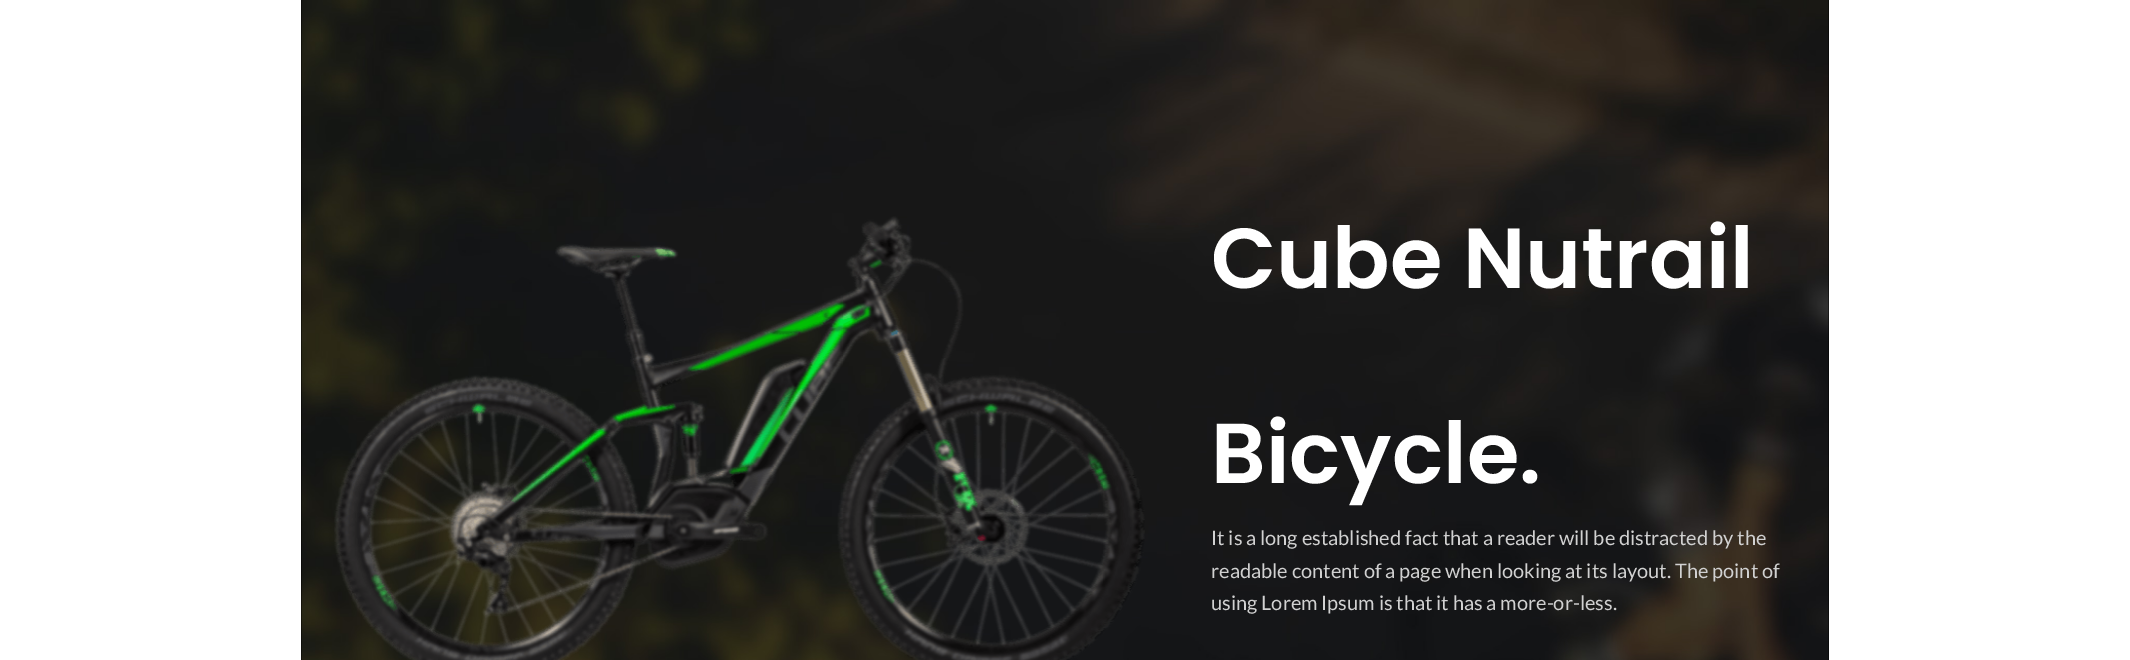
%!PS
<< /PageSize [2130 660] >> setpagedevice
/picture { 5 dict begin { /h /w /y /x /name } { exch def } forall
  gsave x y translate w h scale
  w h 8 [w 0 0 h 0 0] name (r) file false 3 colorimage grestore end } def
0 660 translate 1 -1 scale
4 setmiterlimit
1 setgray
0 0 2130 660 rectfill
0 setgray
301 0 1528 660 rectfill
(img1.rgb) 301 0 1528 660 picture
(img2.rgb) 334 216 811 444 picture
/Poppins-SemiBold [85 0 0 -85 0 0] selectfont
1 setgray
1211 288 moveto (Cube Nutrail) show
1211 483 moveto (Bicycle.) show
/Lato-Regular [20 0 0 -20 0 0] selectfont
0.82 setgray
1211 545 moveto (It is a long established fact that a reader will be distracted by the) show
1211 578 moveto (readable content of a page when looking at its layout. The point of) show
1211 610 moveto (using Lorem Ipsum is that it has a more-or-less.) show
showpage
